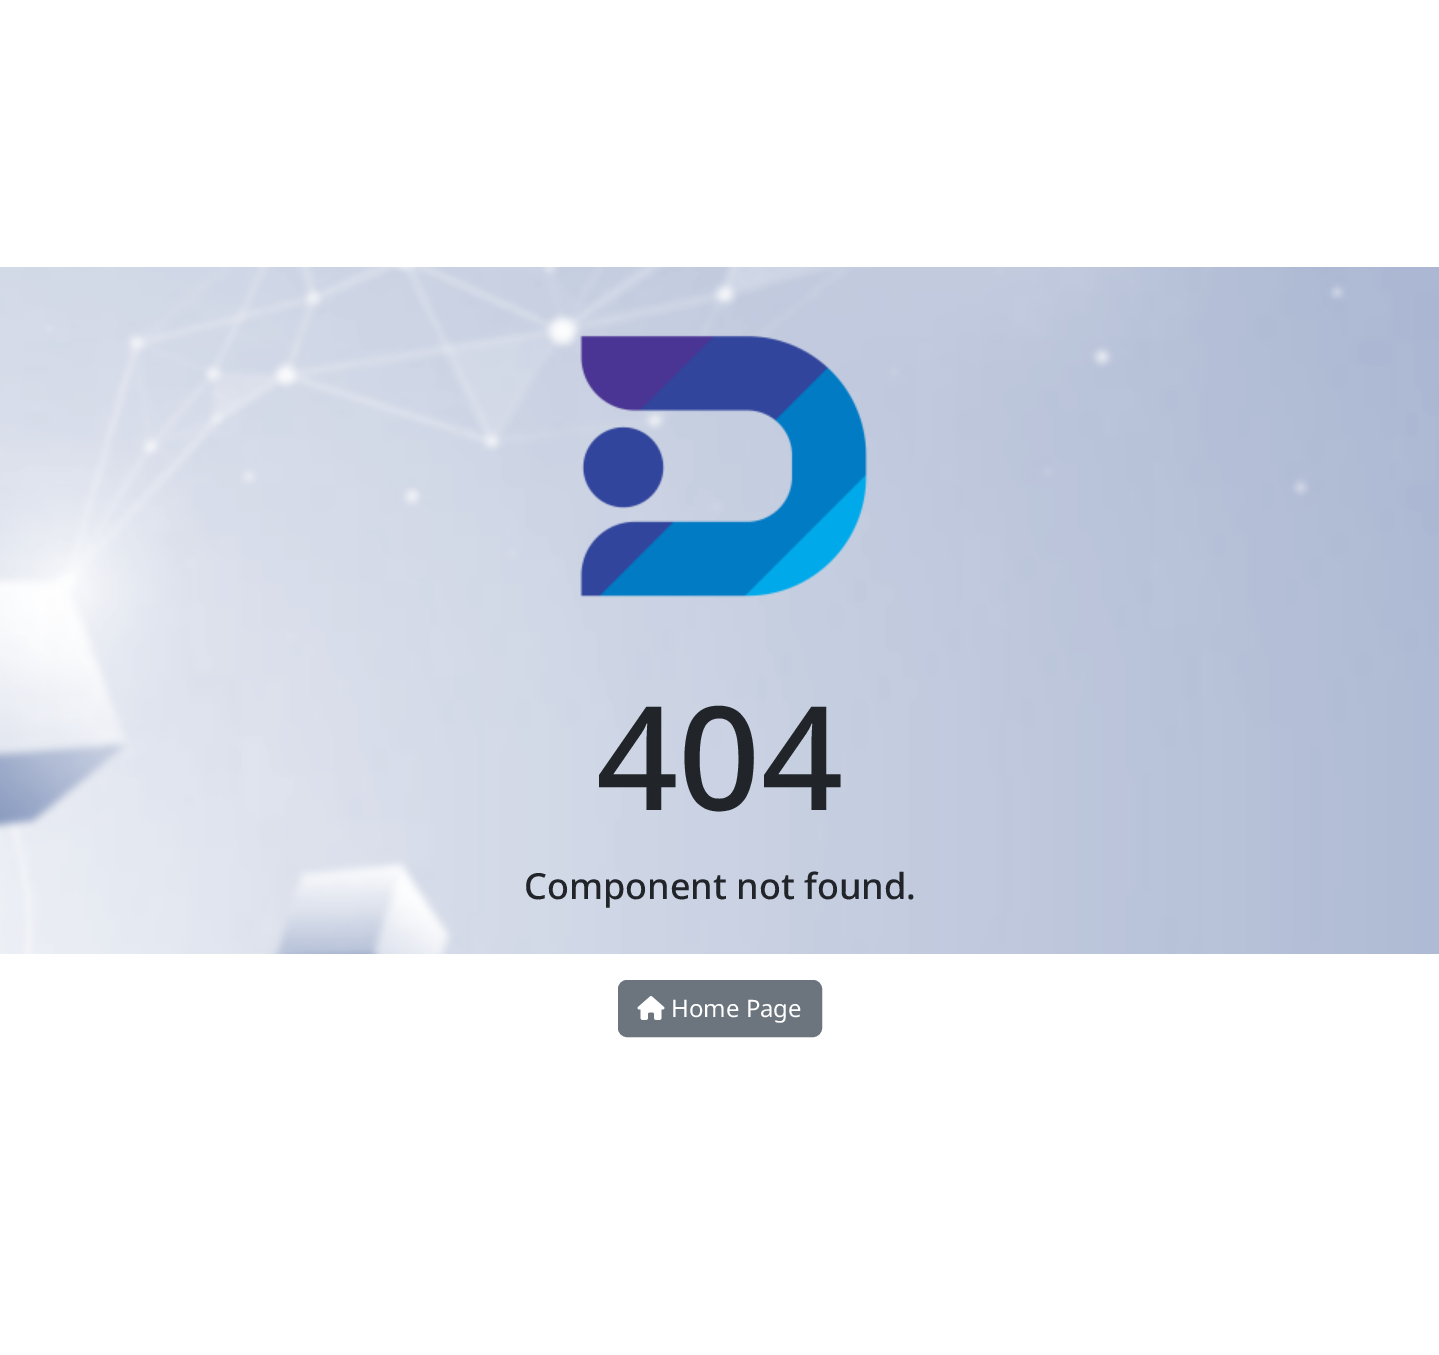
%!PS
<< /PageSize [1439 1355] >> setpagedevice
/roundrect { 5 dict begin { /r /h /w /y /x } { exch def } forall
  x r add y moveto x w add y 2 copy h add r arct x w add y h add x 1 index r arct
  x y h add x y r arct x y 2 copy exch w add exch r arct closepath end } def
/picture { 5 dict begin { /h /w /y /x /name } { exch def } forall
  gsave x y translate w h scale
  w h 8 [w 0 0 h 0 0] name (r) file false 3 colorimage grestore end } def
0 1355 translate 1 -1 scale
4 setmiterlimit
1 setgray
0 0 1439 1355 rectfill
(img1.rgb) 0 267 1439 687 picture
(img2.rgb) 580 335 288 263 picture
/NotoSans-Medium [144 0 0 -144 0 0] selectfont
0.129 0.145 0.161 setrgbcolor
596 810 moveto (404) show
/NotoSans-Medium [36 0 0 -36 0 0] selectfont
524 899 moveto (Component not found.) show
0.424 0.459 0.49 setrgbcolor
619 981 202 55 8 roundrect gsave fill grestore
2 setlinewidth
stroke
(img3.rgb) 637 996 28 24 picture
/NotoSans-Regular [24 0 0 -24 0 0] selectfont
1 setgray
671 1017 moveto (Home Page) show
showpage
